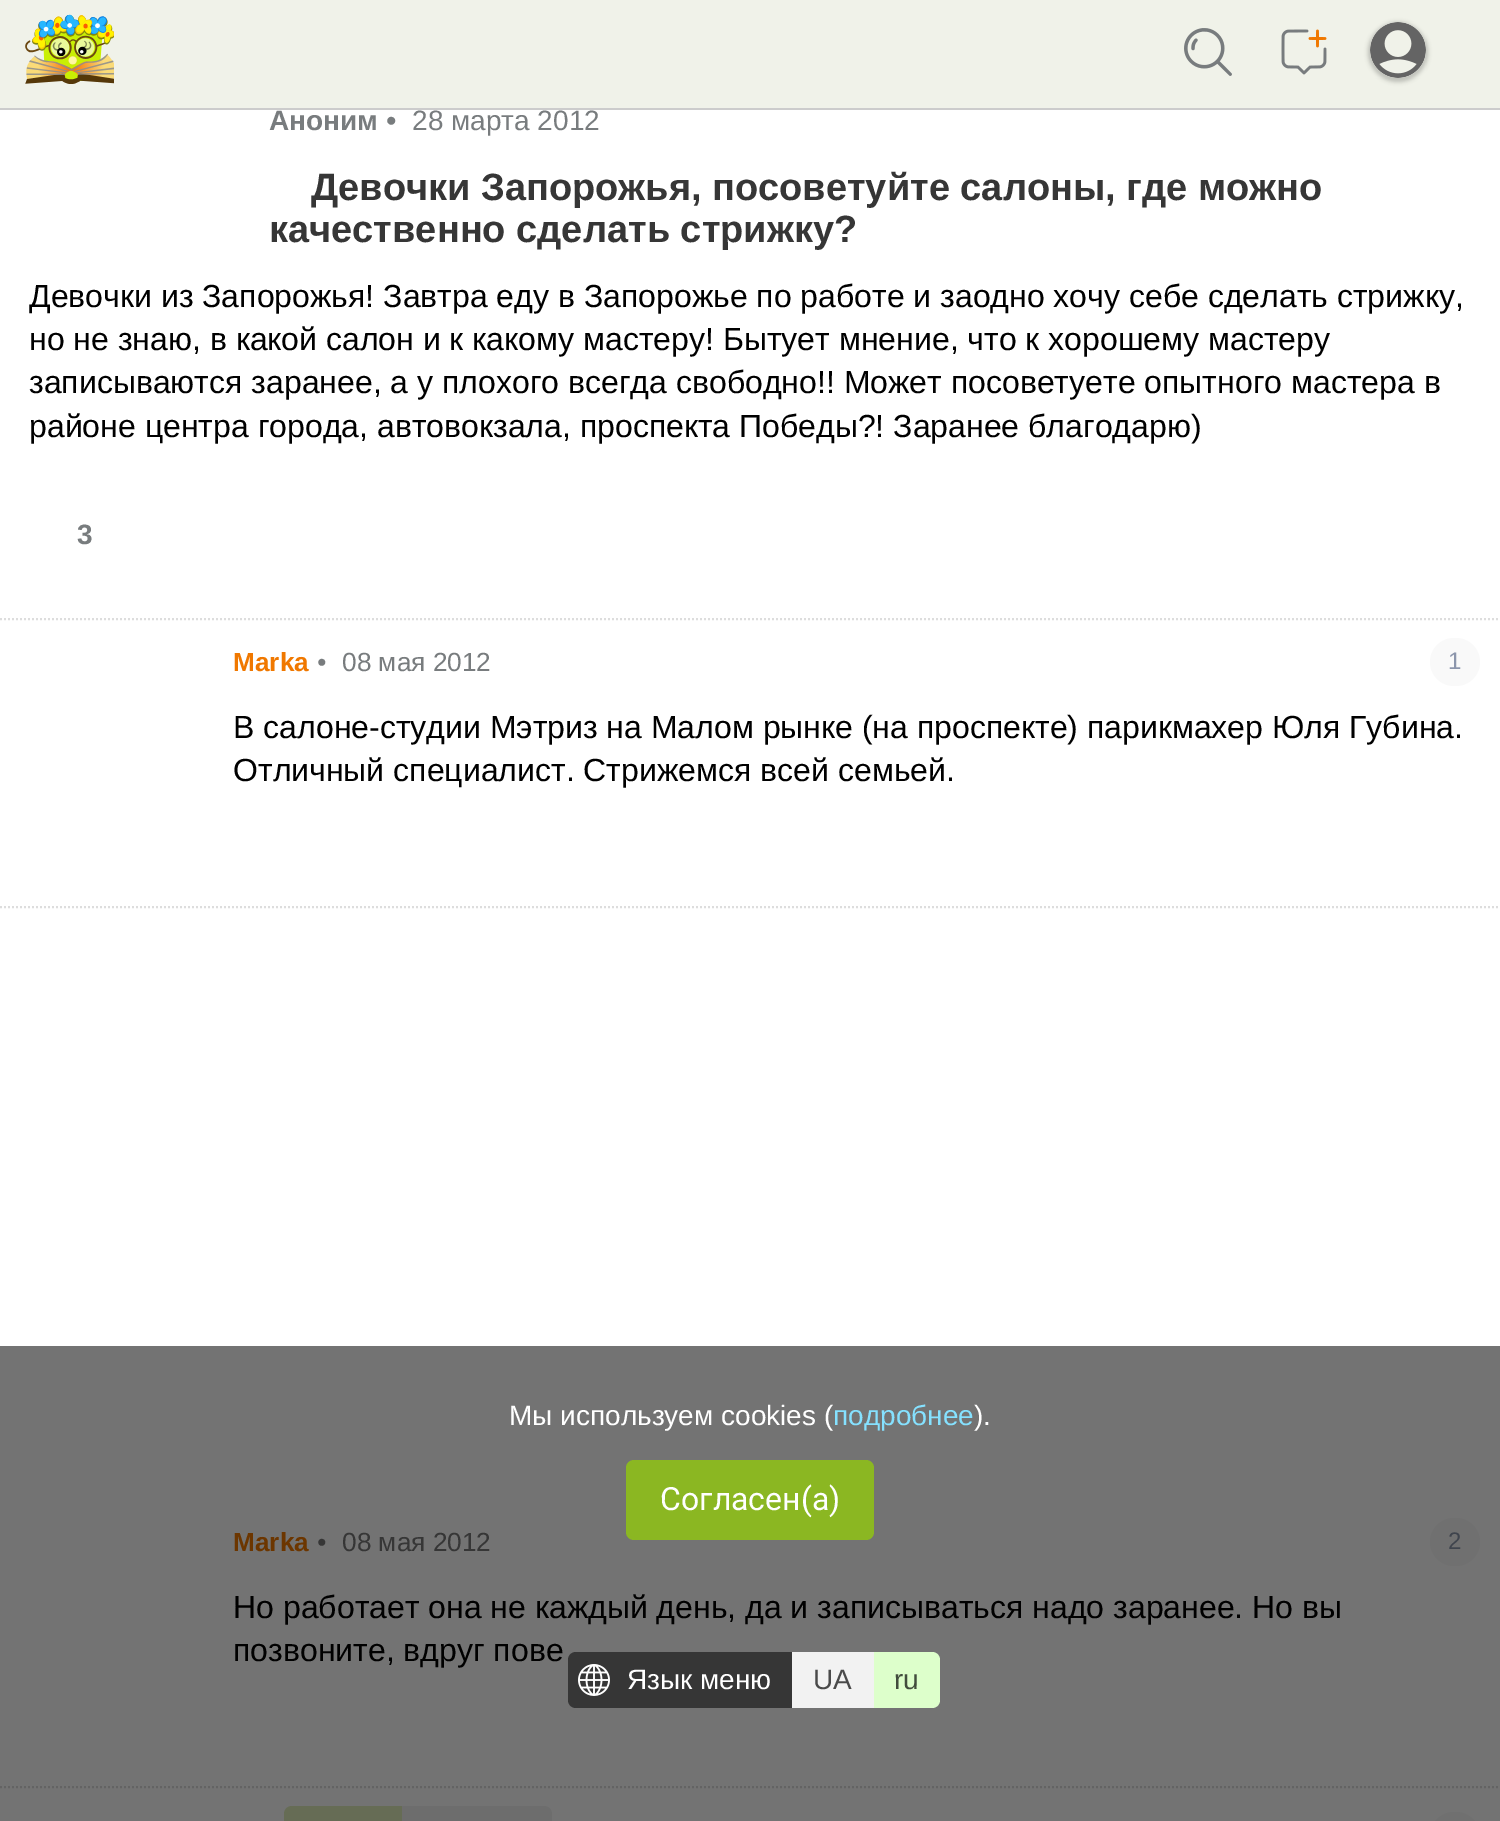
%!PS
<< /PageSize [1500 1821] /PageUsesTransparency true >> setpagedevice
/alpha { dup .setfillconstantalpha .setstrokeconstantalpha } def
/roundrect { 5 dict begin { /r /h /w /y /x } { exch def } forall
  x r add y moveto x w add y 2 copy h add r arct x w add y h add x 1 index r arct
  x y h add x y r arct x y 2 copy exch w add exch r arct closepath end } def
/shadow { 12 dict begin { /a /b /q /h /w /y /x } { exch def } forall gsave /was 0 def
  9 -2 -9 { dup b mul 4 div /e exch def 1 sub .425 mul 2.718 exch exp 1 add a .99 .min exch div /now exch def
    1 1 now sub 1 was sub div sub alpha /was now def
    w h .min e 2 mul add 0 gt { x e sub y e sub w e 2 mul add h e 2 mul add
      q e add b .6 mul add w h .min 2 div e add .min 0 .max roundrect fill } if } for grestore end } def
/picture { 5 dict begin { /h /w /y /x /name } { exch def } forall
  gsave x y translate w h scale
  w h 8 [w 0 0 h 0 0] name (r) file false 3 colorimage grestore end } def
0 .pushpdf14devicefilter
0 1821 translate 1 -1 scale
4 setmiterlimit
1 setgray
0 0 1500 1821 rectfill
0.451 setgray
0 1346 1500 475 rectfill
0.941 0.949 0.914 setrgbcolor
0 0 1500 108 rectfill
0.8 setgray
0 108 1500 2 rectfill
(img1.rgb) 25 14 89 70 picture
(img2.rgb) 1184 28 48 48 picture
(img3.rgb) 1281 29 46 46 picture
gsave
newpath 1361 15 moveto 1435 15 lineto 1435 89 lineto 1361 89 lineto closepath 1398 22 moveto 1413.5 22 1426 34.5 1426 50 curveto 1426 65.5 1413.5 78 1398 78 curveto 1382.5 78 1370 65.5 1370 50 curveto 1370 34.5 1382.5 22 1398 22 curveto closepath eoclip newpath
0 setgray
1368 22 60 60 30 2 0.2 shadow
grestore
(img4.rgb) 1370 22 56 56 picture
0.867 setgray
2 setlinewidth
[2 2] 0 setdash
newpath -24 619 moveto 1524 619 lineto stroke
/LiberationSans-Bold [28 0 0 -28 0 0] selectfont
0.471 0.486 0.494 setrgbcolor
269 130 moveto (Аноним) show
/LiberationSans-BoldItalic [28 0 0 -28 0 0] selectfont
386 130 moveto (•) show
/LiberationSans-Regular [28 0 0 -28 0 0] selectfont
412 130 moveto (28 марта 2012) show
/LiberationSans-Bold [38 0 0 -38 0 0] selectfont
0.212 setgray
311 200 moveto (Девочки Запорожья, посоветуйте салоны, где можно) show
269 242 moveto (качественно сделать стрижку?) show
/LiberationSans-Regular [32 0 0 -32 0 0] selectfont
0 setgray
29 307 moveto (Девочки из Запорожья! Завтра еду в Запорожье по работе и заодно хочу себе сделать стрижку,) show
29 350 moveto (но не знаю, в какой салон и к какому мастеру! Бытует мнение, что к хорошему мастеру) show
29 393 moveto (записываются заранее, а у плохого всегда свободно!! Может посоветуете опытного мастера в) show
29 437 moveto (районе центра города, автовокзала, проспекта Победы?! Заранее благодарю\)) show
/LiberationSans-Bold [28 0 0 -28 0 0] selectfont
0.471 0.486 0.494 setrgbcolor
77 544 moveto (3) show
0.867 setgray
newpath -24 907 moveto 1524 907 lineto stroke
/LiberationSans-Bold [26.25 0 0 -26.25 0 0] selectfont
0.941 0.471 0 setrgbcolor
233 671 moveto (Marka) show
/LiberationSans-Italic [26.25 0 0 -26.25 0 0] selectfont
0.471 0.486 0.494 setrgbcolor
317 671 moveto (•) show
/LiberationSans-Regular [26.25 0 0 -26.25 0 0] selectfont
342 671 moveto (08 мая 2012) show
0.976 setgray
1430 638 50 48 24 roundrect fill
/LiberationSans-Regular [24 0 0 -24 0 0] selectfont
0.549 0.588 0.675 setrgbcolor
1448 669 moveto (1) show
/LiberationSans-Regular [32 0 0 -32 0 0] selectfont
0 setgray
233 738 moveto (В салоне-студии Мэтриз на Малом рынке \(на проспекте\) парикмахер Юля Губина.) show
233 781 moveto (Отличный специалист. Стрижемся всей семьей.) show
0.388 setgray
newpath -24 1787 moveto 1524 1787 lineto stroke
/LiberationSans-Bold [26.25 0 0 -26.25 0 0] selectfont
0.424 0.212 0 setrgbcolor
233 1551 moveto (Marka) show
/LiberationSans-Italic [26.25 0 0 -26.25 0 0] selectfont
0.212 setgray
317 1551 moveto (•) show
/LiberationSans-Regular [26.25 0 0 -26.25 0 0] selectfont
342 1551 moveto (08 мая 2012) show
0.439 setgray
1430 1518 50 48 24 roundrect fill
/LiberationSans-Regular [24 0 0 -24 0 0] selectfont
0.247 0.267 0.302 setrgbcolor
1448 1549 moveto (2) show
/LiberationSans-Regular [32 0 0 -32 0 0] selectfont
0 setgray
233 1618 moveto (Но работает она не каждый день, да и записываться надо заранее. Но вы) show
233 1661 moveto (позвоните, вдруг пове) show
0.4 0.424 0.333 setrgbcolor
newpath 292 1806 moveto 402 1806 lineto 402 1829 lineto 292 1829 lineto 287.5 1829 284 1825.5 284 1821 curveto 284 1814 lineto 284 1809.5 287.5 1806 292 1806 curveto closepath fill
0.427 setgray
newpath 402 1806 moveto 544 1806 lineto 548.5 1806 552 1809.5 552 1814 curveto 552 1821 lineto 552 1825.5 548.5 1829 544 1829 curveto 402 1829 lineto closepath fill
0.439 setgray
1430 1812 50 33 24 roundrect fill
/LiberationSans-Regular [28 0 0 -28 0 0] selectfont
1 setgray
509 1425 moveto (Мы используем cookies \() show
0.522 0.882 1 setrgbcolor
833 1425 moveto (подробнее) show
1 setgray
974 1425 moveto (\).) show
0.545 0.718 0.133 setrgbcolor
626 1460 248 80 8 roundrect fill
/Roboto-Regular [32 0 0 -32 0 0] selectfont
1 setgray
660 1510 moveto (Согласен\(а\)) show
0.212 setgray
newpath 576 1652 moveto 792 1652 lineto 792 1708 lineto 576 1708 lineto 571.5 1708 568 1704.5 568 1700 curveto 568 1660 lineto 568 1655.5 571.5 1652 576 1652 curveto closepath fill
(img5.rgb) 578 1664 32 32 picture
/LiberationSans-Regular [28 0 0 -28 0 0] selectfont
1 setgray
627 1689 moveto (Язык меню) show
0.949 setgray
792 1652 82 56 rectfill
0.29 setgray
813 1689 moveto (UA) show
0.867 1 0.796 setrgbcolor
newpath 874 1652 moveto 932 1652 lineto 936.5 1652 940 1655.5 940 1660 curveto 940 1700 lineto 940 1704.5 936.5 1708 932 1708 curveto 874 1708 lineto closepath fill
0.259 0.302 0.239 setrgbcolor
894 1689 moveto (ru) show
.poppdf14devicefilter showpage
